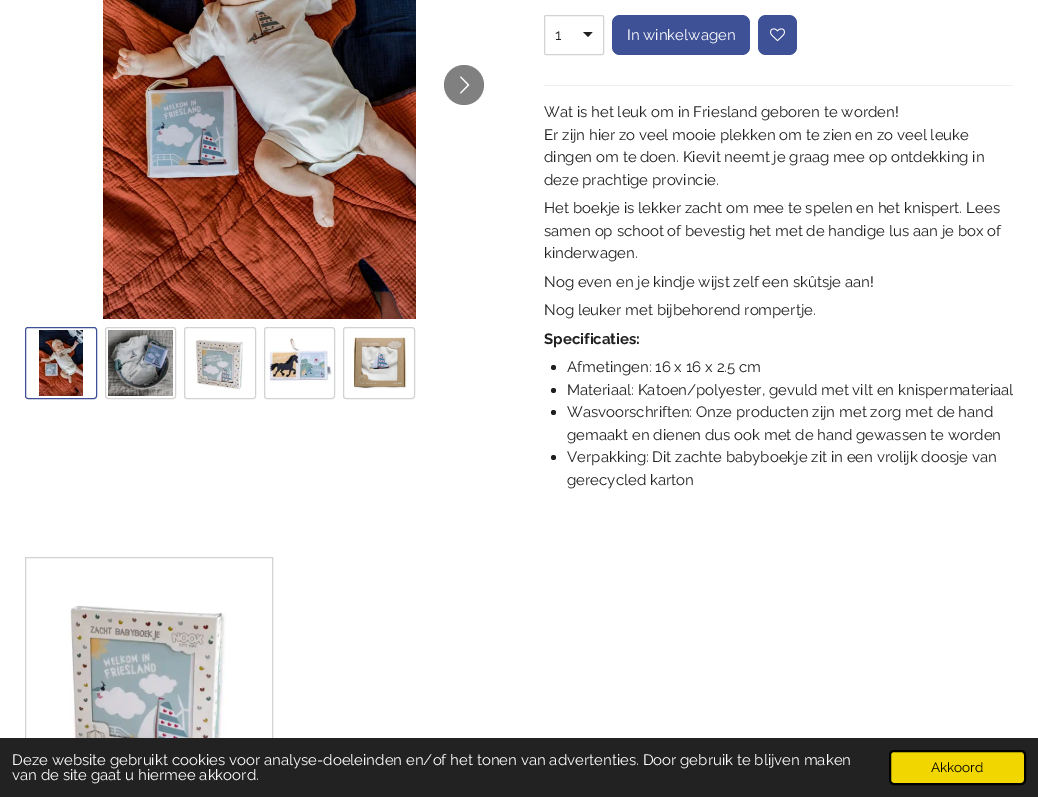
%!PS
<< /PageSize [1038 797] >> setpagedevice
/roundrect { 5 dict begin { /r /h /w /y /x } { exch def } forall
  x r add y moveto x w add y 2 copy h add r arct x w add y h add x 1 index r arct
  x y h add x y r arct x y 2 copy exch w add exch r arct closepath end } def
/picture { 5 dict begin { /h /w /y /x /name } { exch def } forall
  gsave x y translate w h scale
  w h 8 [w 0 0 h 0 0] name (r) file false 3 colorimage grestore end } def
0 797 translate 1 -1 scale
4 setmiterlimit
1 setgray
0 0 1038 797 rectfill
(img1.rgb) 103 0 313 319 picture
0.502 setgray
newpath 464 85 20 0 360 arc closepath fill
(img2.rgb) 460 76 10 18 picture
0.243 0.314 0.588 setrgbcolor
25.5 327.5 71 71 2.5 roundrect stroke
(img3.rgb) 39 330 44 66 picture
0.824 setgray
105.5 327.5 70 71 2.5 roundrect stroke
(img4.rgb) 108 330 65 66 picture
184.5 327.5 71 71 2.5 roundrect stroke
(img5.rgb) 195 338 48 53 picture
264.5 327.5 70 71 2.5 roundrect stroke
(img6.rgb) 267 338 65 45 picture
343.5 327.5 71 71 2.5 roundrect stroke
(img7.rgb) 353 337 54 52 picture
0.125 setgray
newpath 588 37 moveto 583 32 lineto 592.5 32 lineto closepath fill
0.827 setgray
544.5 15.5 59 39 1.5 roundrect stroke
/Raleway-Regular [15 0 0 -15 0 0] selectfont
0.125 setgray
555 40 moveto (1) show
0.243 0.314 0.588 setrgbcolor
612 15 138 40 8 roundrect fill
1 setgray
627 40 moveto (In winkelwagen) show
0.243 0.314 0.588 setrgbcolor
758 15 39 40 8 roundrect fill
(img8.rgb) 770 28 15 14 picture
0.937 setgray
544 85 469 1 rectfill
0.125 setgray
544 117 moveto (Wat is het leuk om in Friesland geboren te worden!) show
544 140 moveto (Er zijn hier zo veel mooie plekken om te zien en zo veel leuke) show
544 162 moveto (dingen om te doen. Kievit neemt je graag mee op ontdekking in) show
544 185 moveto (deze prachtige provincie.) show
544 213 moveto (Het boekje is lekker zacht om mee te spelen en het knispert. Lees) show
544 236 moveto (samen op schoot of bevestig het met de handige lus aan je box of) show
544 258 moveto (kinderwagen.) show
544 287 moveto (Nog even en je kindje wijst zelf een skûtsje aan!) show
544 315 moveto (Nog leuker met bijbehorend rompertje.) show
/Raleway-Bold [15 0 0 -15 0 0] selectfont
544 344 moveto (Specificaties:) show
newpath 553.5 367.5 2.5 0 360 arc closepath fill
/Raleway-Regular [15 0 0 -15 0 0] selectfont
567 372 moveto (Afmetingen: 16 x 16 x 2.5 cm) show
newpath 553.5 390.5 2.5 0 360 arc closepath fill
567 395 moveto (Materiaal: Katoen/polyester, gevuld met vilt en knispermateriaal) show
newpath 553.5 412.5 2.5 0 360 arc closepath fill
567 417 moveto (Wasvoorschriften: Onze producten zijn met zorg met de hand) show
567 440 moveto (gemaakt en dienen dus ook met de hand gewassen te worden) show
newpath 553.5 457.5 2.5 0 360 arc closepath fill
567 462 moveto (Verpakking: Dit zachte babyboekje zit in een vrolijk doosje van) show
567 485 moveto (gerecycled karton) show
0.824 setgray
25.5 557.5 247 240 rectstroke
(img9.rgb) 70 605 157 133 picture
0.133 setgray
0 738 1038 59 rectfill
1 setgray
12 765 moveto (Deze website gebruikt cookies voor analyse-doeleinden en/of het tonen van advertenties. Door gebruik te blijven maken) show
12 780 moveto (van de site gaat u hiermee akkoord.) show
0.945 0.839 0 setrgbcolor
890 751 135 33 4 roundrect gsave fill grestore
0 setgray
2 setlinewidth
stroke
/Raleway-Regular [13.5 0 0 -13.5 0 0] selectfont
931 772 moveto (Akkoord) show
showpage
